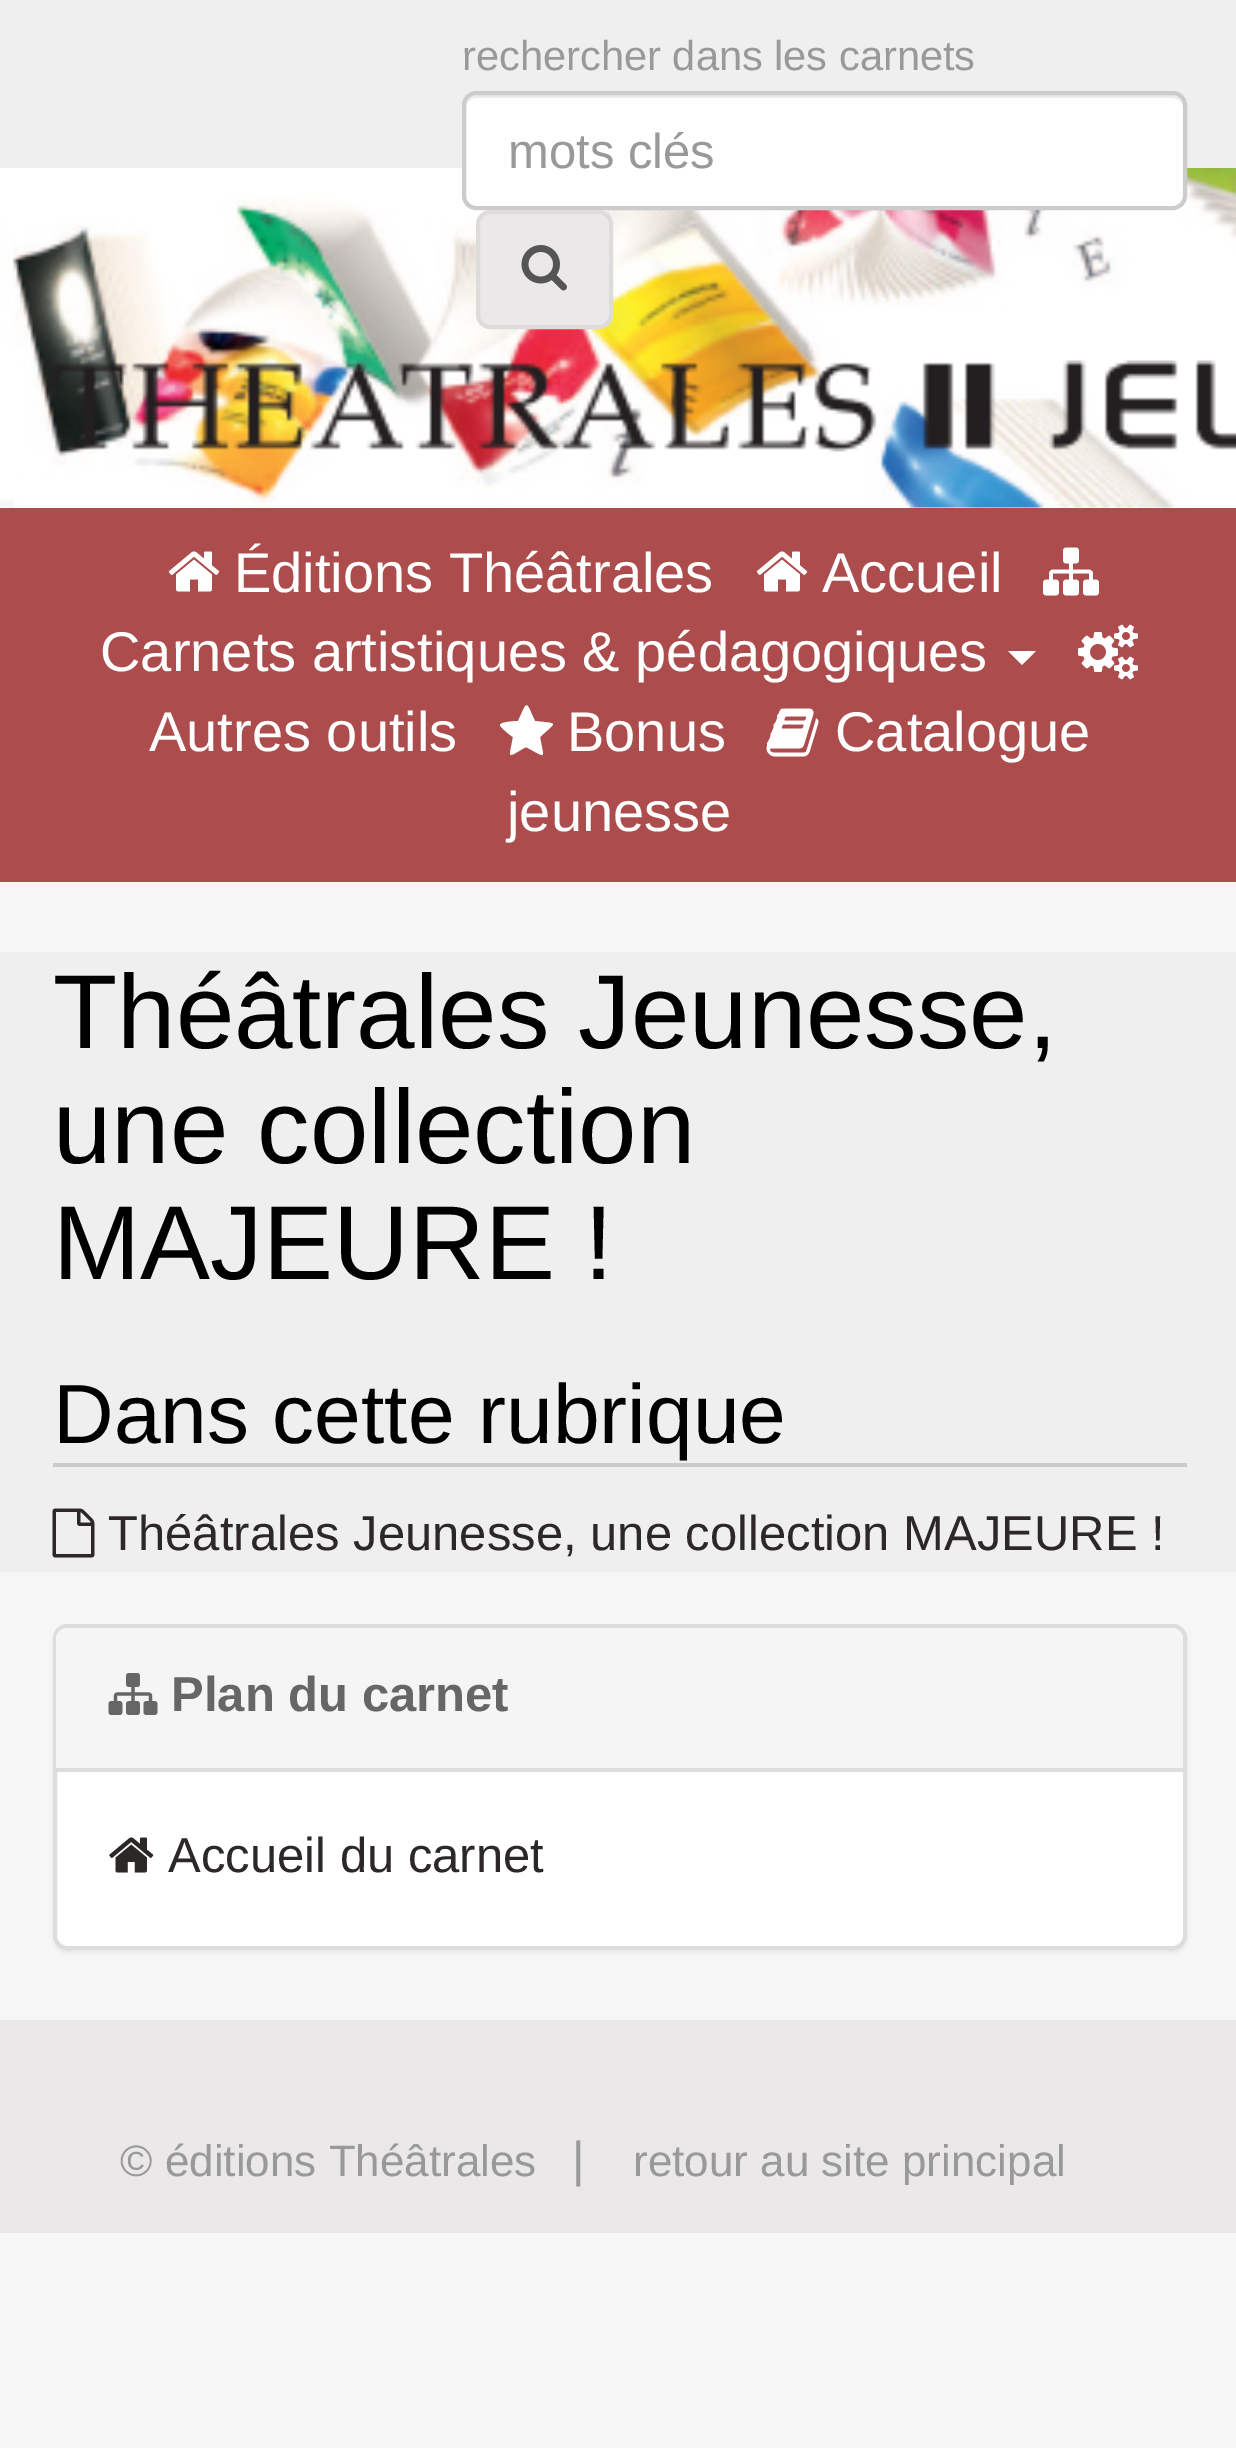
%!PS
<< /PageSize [1236 2448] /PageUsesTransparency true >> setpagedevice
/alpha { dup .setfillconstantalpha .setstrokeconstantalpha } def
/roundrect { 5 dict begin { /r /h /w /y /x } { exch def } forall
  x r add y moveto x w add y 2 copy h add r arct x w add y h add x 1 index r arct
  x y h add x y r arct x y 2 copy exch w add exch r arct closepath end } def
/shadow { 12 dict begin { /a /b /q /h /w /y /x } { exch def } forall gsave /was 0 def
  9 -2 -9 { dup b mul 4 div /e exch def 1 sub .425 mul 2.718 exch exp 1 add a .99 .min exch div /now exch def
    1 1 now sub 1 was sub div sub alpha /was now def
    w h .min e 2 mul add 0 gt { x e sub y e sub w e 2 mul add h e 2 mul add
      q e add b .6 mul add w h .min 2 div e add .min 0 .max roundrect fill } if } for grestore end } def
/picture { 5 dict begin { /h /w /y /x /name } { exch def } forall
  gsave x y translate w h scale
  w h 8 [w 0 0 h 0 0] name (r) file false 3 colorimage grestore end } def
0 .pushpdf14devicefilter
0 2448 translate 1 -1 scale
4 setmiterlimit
0.965 setgray
0 0 1236 2448 rectfill
0.937 setgray
0 0 1236 168 rectfill
/LiberationSans-Regular [41.6 0 0 -41.6 0 0] selectfont
0.6 setgray
462 70 moveto (rechercher dans les carnets) show
1 setgray
0 507 1236 1 rectfill
(img2.rgb) 0 168 1236 340 picture
462 91 725 119 14 roundrect fill
0.925 setgray
newpath 476 98 moveto 1172 98 lineto 1178 98 1183 103 1183 108 curveto 1183 101 1179 95 1172 95 curveto 477 95 lineto 470 95 466 101 466 108 curveto 466 103 470 98 476 98 curveto closepath fill
0.8 setgray
4 setlinewidth
464 93 721 115 12 roundrect stroke
/LiberationSans-Regular [49 0 0 -49 0 0] selectfont
0.6 setgray
508 168 moveto (mots clés) show
0.918 0.91 0.91 setrgbcolor
478 212 133 115 12 roundrect gsave fill grestore
0.871 0.859 0.859 setrgbcolor
stroke
(img1.rgb) 521 245 46 46 picture
(img3.rgb) 53 360 1183 92 picture
0.675 0.298 0.298 setrgbcolor
0 508 1236 374 rectfill
(img4.rgb) 168 551 52 41 picture
/LiberationSans-Regular [56 0 0 -56 0 0] selectfont
1 setgray
234 592 moveto (Éditions Théâtrales) show
(img4.rgb) 756 551 52 41 picture
822 592 moveto (Accueil) show
(img5.rgb) 1043 547 56 49 picture
100 671 moveto (Carnets artistiques & pédagogiques) show
newpath 1008 651 moveto 1036 651 lineto 1022 665 lineto closepath fill
(img6.rgb) 1078 624 60 56 picture
149 751 moveto (Autres outils) show
(img7.rgb) 766 708 53 49 picture
835 751 moveto (Catalogue) show
507 831 moveto (jeunesse) show
newpath 500 725 moveto 500 722 515 721 518 721 curveto 528 700 525 700 535 721 curveto 559 724 557 721 540 737 curveto 544 760 547 758 526 747 curveto 506 758 509 760 513 737 curveto 511 736 500 727 500 725 curveto closepath fill
567 751 moveto (Bonus) show
0.937 setgray
0 952 1236 620 rectfill
/LiberationSans-Regular [105 0 0 -105 0 0] selectfont
0 setgray
53 1048 moveto (Théâtrales Jeunesse,) show
53 1163 moveto (une collection) show
53 1279 moveto (MAJEURE !) show
0.8 setgray
53 1463 1134 4 rectfill
/LiberationSans-Regular [84 0 0 -84 0 0] selectfont
0 setgray
53 1443 moveto (Dans cette rubrique) show
(img8.rgb) 52 1508 43 50 picture
/LiberationSans-Regular [49 0 0 -49 0 0] selectfont
0.169 0.157 0.153 setrgbcolor
108 1550 moveto (Théâtrales Jeunesse, une collection MAJEURE !) show
0 setgray
53 1628 1134 325 14 2 0.05 shadow
1 setgray
55 1626 1130 322 12 roundrect gsave fill grestore
0.867 setgray
stroke
0.961 setgray
newpath 67 1628 moveto 1172 1628 lineto 1178 1628 1183 1633 1183 1639 curveto 1183 1771 lineto 56 1771 lineto 56 1639 lineto 56 1633 61 1628 67 1628 curveto closepath fill
0.867 setgray
56 1768 1127 4 rectfill
(img9.rgb) 108 1673 50 42 picture
/LiberationSans-Bold [49 0 0 -49 0 0] selectfont
0.4 setgray
171 1711 moveto (Plan du carnet) show
(img10.rgb) 109 1837 45 36 picture
/LiberationSans-Regular [49 0 0 -49 0 0] selectfont
0.169 0.157 0.153 setrgbcolor
168 1872 moveto (Accueil du carnet) show
0.918 0.91 0.91 setrgbcolor
0 2020 1236 213 rectfill
/LiberationSans-Regular [44 0 0 -44 0 0] selectfont
0.6 setgray
120 2176 moveto (© éditions Théâtrales) show
/LiberationSans-Regular [49 0 0 -49 0 0] selectfont
572 2176 moveto (|) show
/LiberationSans-Regular [44 0 0 -44 0 0] selectfont
633 2176 moveto (retour au site principal) show
.poppdf14devicefilter showpage
